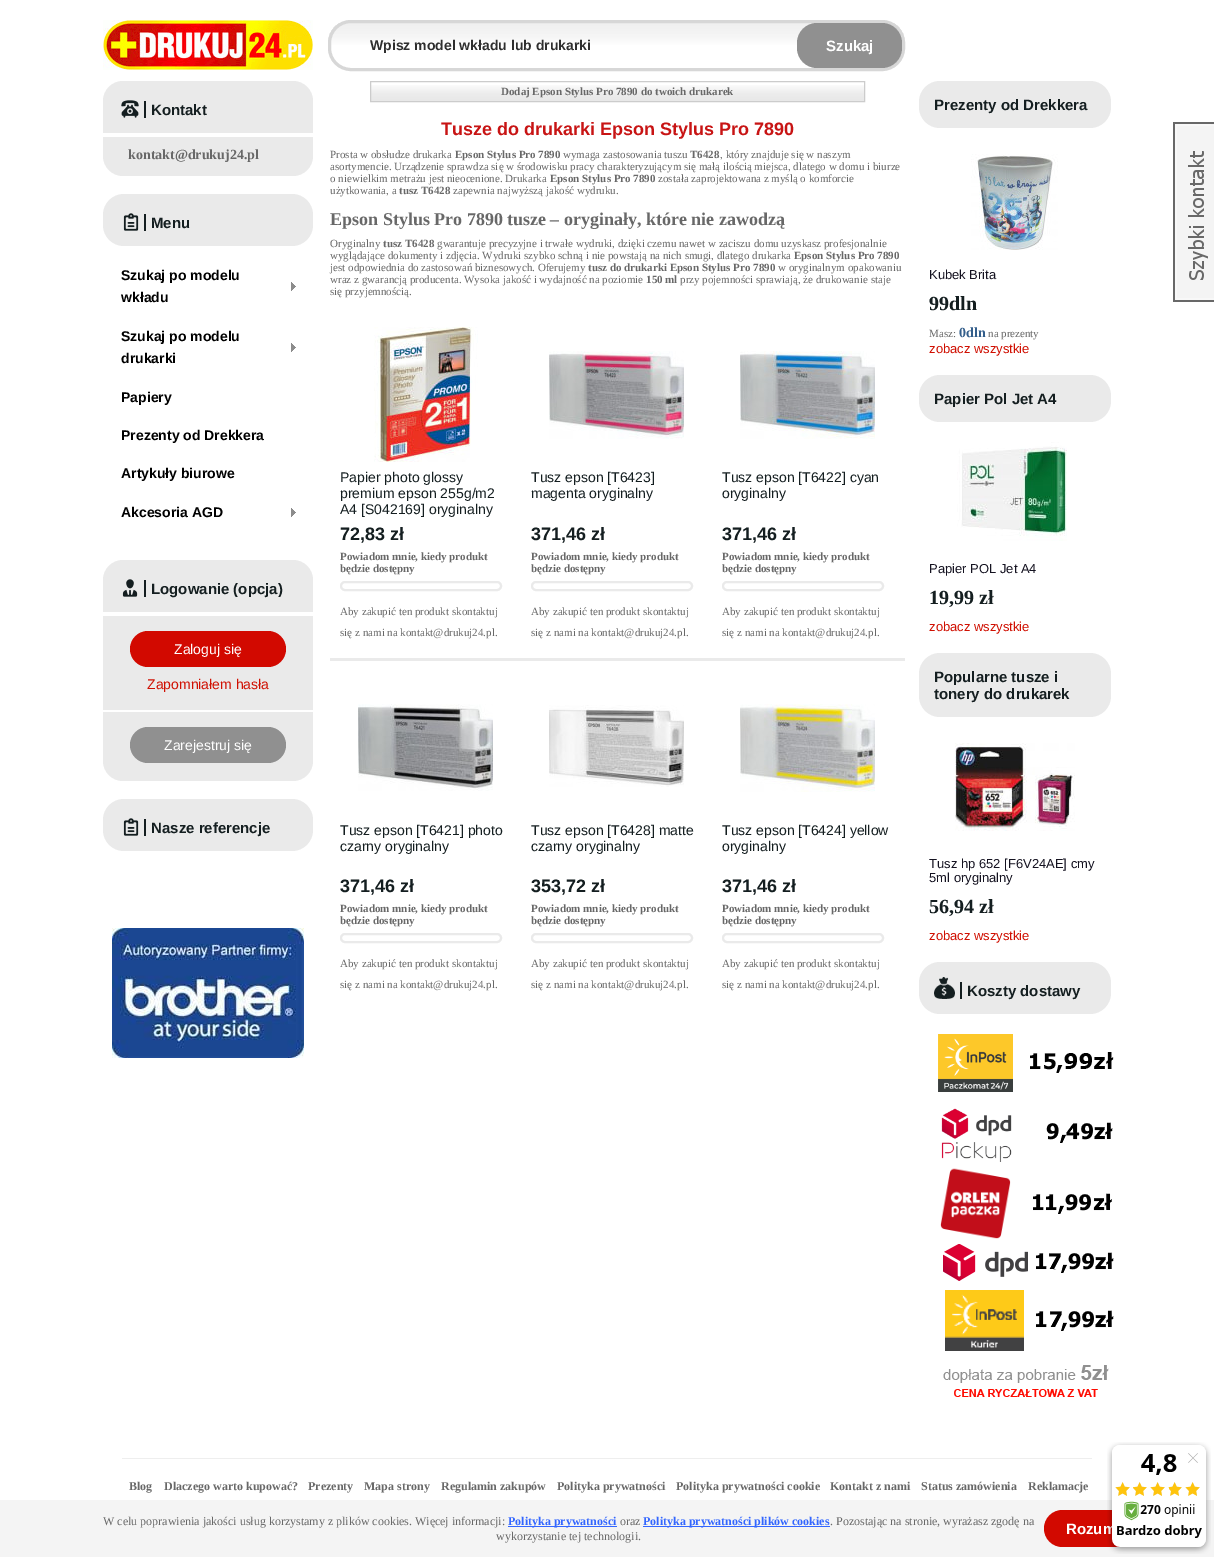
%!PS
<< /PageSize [1214 1557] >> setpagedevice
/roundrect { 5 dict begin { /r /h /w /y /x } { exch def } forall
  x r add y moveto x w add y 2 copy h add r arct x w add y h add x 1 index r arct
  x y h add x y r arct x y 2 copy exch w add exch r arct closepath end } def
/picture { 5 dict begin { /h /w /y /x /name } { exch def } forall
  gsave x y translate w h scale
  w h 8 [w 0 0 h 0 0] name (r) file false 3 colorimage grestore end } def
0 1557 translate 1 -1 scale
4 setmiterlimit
1 setgray
0 0 1214 1557 rectfill
(img1.rgb) 103 20 210 50 picture
gsave
328 20 577 51 23 roundrect clip newpath
gsave newpath 328 23 moveto 905 23 lineto 905 68 lineto 328 68 lineto closepath clip newpath
<< /ShadingType 2 /ColorSpace /DeviceRGB /Coords [331 68 331 23] /Extend [true true] /Function << /FunctionType 3 /Domain [0 1] /Functions [<< /FunctionType 2 /Domain [0 1] /C0 [1 1 1] /C1 [1 1 1] /N 1 >> << /FunctionType 2 /Domain [0 1] /C0 [1 1 1] /C1 [0.961 0.961 0.961] /N 1 >> << /FunctionType 2 /Domain [0 1] /C0 [0.961 0.961 0.961] /C1 [0.941 0.941 0.941] /N 1 >>] /Bounds [0.5 0.71] /Encode [0 1 0 1 0 1] >> >> shfill grestore
grestore
0.843 setgray
3 setlinewidth
329.5 21.5 574 48 21.5 roundrect stroke
/LiberationSans-Bold [14 0 0 -14 0 0] selectfont
0.184 setgray
370 50 moveto (Wpisz model wkładu lub drukarki) show
0.565 setgray
797 23 105 45 20 roundrect fill
/LiberationSans-Bold [15 0 0 -15 0 0] selectfont
1 setgray
826 51 moveto (Szukaj) show
0.918 setgray
newpath 123 81 moveto 293 81 lineto 304 81 313 90 313 101 curveto 313 133 lineto 103 133 lineto 103 101 lineto 103 90 112 81 123 81 curveto closepath fill
(img2.rgb) 121 100 18 18 picture
0.078 0.118 0.125 setrgbcolor
151 115 moveto (Kontakt) show
144 101 2 17 rectfill
0.918 setgray
newpath 103 137 moveto 313 137 lineto 313 156 lineto 313 167 304 176 293 176 curveto 123 176 lineto 112 176 103 167 103 156 curveto closepath fill
/LiberationSerif-Bold [14 0 0 -14 0 0] selectfont
0.408 setgray
128 159 moveto (kontakt@drukuj24.pl) show
0.918 setgray
103 194 210 52 21 roundrect fill
(img3.rgb) 123 213 16 18 picture
/LiberationSans-Bold [15 0 0 -15 0 0] selectfont
0.078 0.118 0.125 setrgbcolor
151 228 moveto (Menu) show
144 214 2 17 rectfill
(img4.rgb) 291 282 5 9 picture
/LiberationSans-Bold [14 0 0 -14 0 0] selectfont
0 setgray
121 280 moveto (Szukaj po modelu) show
121 302 moveto (wkładu) show
(img4.rgb) 291 343 5 9 picture
121 341 moveto (Szukaj po modelu) show
121 363 moveto (drukarki) show
121 402 moveto (Papiery) show
121 440 moveto (Prezenty od Drekkera) show
121 478 moveto (Artykuły biurowe) show
(img4.rgb) 291 508 5 9 picture
121 517 moveto (Akcesoria AGD) show
0.918 setgray
newpath 123 560 moveto 293 560 lineto 304 560 313 569 313 580 curveto 313 612 lineto 103 612 lineto 103 580 lineto 103 569 112 560 123 560 curveto closepath fill
(img5.rgb) 122 579 16 18 picture
/LiberationSans-Bold [15 0 0 -15 0 0] selectfont
0.078 0.118 0.125 setrgbcolor
151 594 moveto (Logowanie \(opcja\)) show
144 580 2 17 rectfill
0.918 setgray
103 616 210 94 rectfill
0.824 0.035 0 setrgbcolor
130 631 156 36 18 roundrect fill
/LiberationSans-Regular [14 0 0 -14 0 0] selectfont
1 setgray
174 654 moveto (Zaloguj się) show
0.816 0.063 0.008 setrgbcolor
147 689 moveto (Zapomniałem hasła) show
0.918 setgray
newpath 103 712 moveto 313 712 lineto 313 761 lineto 313 772 304 781 293 781 curveto 123 781 lineto 112 781 103 772 103 761 curveto closepath fill
0.565 setgray
130 727 156 36 18 roundrect fill
1 setgray
164 750 moveto (Zarejestruj się) show
0.918 setgray
103 799 210 52 21 roundrect fill
(img3.rgb) 123 818 16 18 picture
/LiberationSans-Bold [15 0 0 -15 0 0] selectfont
0.078 0.118 0.125 setrgbcolor
151 833 moveto (Nasze referencje) show
144 819 2 17 rectfill
(img6.rgb) 112 928 192 130 picture
(img7.rgb) 371 85 493 16 picture
0.8 setgray
1 setlinewidth
370.5 81.5 494 20 rectstroke
/LiberationSerif-Bold [11 0 0 -11 0 0] selectfont
0.408 setgray
501 95 moveto (Dodaj Epson Stylus Pro 7890 do twoich drukarek) show
/LiberationSans-Bold [18 0 0 -18 0 0] selectfont
0.784 0.078 0.078 setrgbcolor
441 135 moveto (Tusze do drukarki Epson Stylus Pro 7890) show
/LiberationSerif-Regular [11 0 0 -11 0 0] selectfont
0.408 setgray
330 158 moveto (Prosta w obsłudze drukarka) show
/LiberationSerif-Bold [11 0 0 -11 0 0] selectfont
455 158 moveto (Epson Stylus Pro 7890) show
/LiberationSerif-Regular [11 0 0 -11 0 0] selectfont
563 158 moveto (wymaga zastosowania tuszu) show
/LiberationSerif-Bold [11 0 0 -11 0 0] selectfont
690 158 moveto (T6428) show
/LiberationSerif-Regular [11 0 0 -11 0 0] selectfont
720 158 moveto (, który znajduje się w naszym) show
330 170 moveto (asortymencie. Urządzenie sprawdza się w środowisku pracy charakteryzującym się małą ilością miejsca, dlatego w domu i biurze) show
330 182 moveto (o niewielkim metrażu jest nieocenione. Drukarka) show
/LiberationSerif-Bold [11 0 0 -11 0 0] selectfont
550 182 moveto (Epson Stylus Pro 7890) show
/LiberationSerif-Regular [11 0 0 -11 0 0] selectfont
658 182 moveto (została zaprojektowana z myślą o komforcie) show
330 194 moveto (użytkowania, a) show
/LiberationSerif-Bold [11 0 0 -11 0 0] selectfont
399 194 moveto (tusz T6428) show
/LiberationSerif-Regular [11 0 0 -11 0 0] selectfont
453 194 moveto (zapewnia najwyższą jakość wydruku.) show
/LiberationSerif-Bold [18 0 0 -18 0 0] selectfont
330 225 moveto (Epson Stylus Pro 7890 tusze – oryginały, które nie zawodzą) show
/LiberationSerif-Regular [11 0 0 -11 0 0] selectfont
330 247 moveto (Oryginalny) show
/LiberationSerif-Bold [11 0 0 -11 0 0] selectfont
383 247 moveto (tusz T6428) show
/LiberationSerif-Regular [11 0 0 -11 0 0] selectfont
437 247 moveto (gwarantuje precyzyjne i trwałe wydruki, dzięki czemu nawet w zaciszu domu uzyskasz profesjonalnie) show
330 259 moveto (wyglądające dokumenty i zdjęcia. Wydruki szybko schną i nie powstają na nich smugi, dlatego drukarka) show
/LiberationSerif-Bold [11 0 0 -11 0 0] selectfont
794 259 moveto (Epson Stylus Pro 7890) show
/LiberationSerif-Regular [11 0 0 -11 0 0] selectfont
330 271 moveto (jest odpowiednia do zastosowań biznesowych. Oferujemy) show
/LiberationSerif-Bold [11 0 0 -11 0 0] selectfont
588 271 moveto (tusz do drukarki Epson Stylus Pro 7890) show
/LiberationSerif-Regular [11 0 0 -11 0 0] selectfont
778 271 moveto (w oryginalnym opakowaniu) show
330 283 moveto (wraz z gwarancją producenta. Wysoka jakość i wydajność na poziomie) show
/LiberationSerif-Bold [11 0 0 -11 0 0] selectfont
646 283 moveto (150 ml) show
/LiberationSerif-Regular [11 0 0 -11 0 0] selectfont
680 283 moveto (przy pojemności sprawiają, że drukowanie staje) show
330 295 moveto (się przyjemnością.) show
0.918 setgray
330 658 575 3 rectfill
(img8.rgb) 374 327 104 135 picture
/LiberationSans-Regular [14 0 0 -14 0 0] selectfont
0.078 0.118 0.125 setrgbcolor
340 482 moveto (Papier photo glossy) show
340 498 moveto (premium epson 255g/m2) show
340 514 moveto (A4 [S042169] oryginalny) show
/LiberationSans-Bold [18 0 0 -18 0 0] selectfont
340 540 moveto (72,83 zł) show
/LiberationSerif-Bold [11 0 0 -11 0 0] selectfont
0.408 setgray
340 560 moveto (Powiadom mnie, kiedy produkt) show
340 572 moveto (będzie dostępny) show
0.918 setgray
2 setlinewidth
341 582 160 8 4 roundrect stroke
/LiberationSerif-Regular [11 0 0 -11 0 0] selectfont
0.408 setgray
340 615 moveto (Aby zakupić ten produkt skontaktuj) show
340 636 moveto (się z nami na kontakt@drukuj24.pl.) show
(img9.rgb) 549 351 135 88 picture
/LiberationSans-Regular [14 0 0 -14 0 0] selectfont
0.078 0.118 0.125 setrgbcolor
531 482 moveto (Tusz epson [T6423]) show
531 498 moveto (magenta oryginalny) show
/LiberationSans-Bold [18 0 0 -18 0 0] selectfont
531 540 moveto (371,46 zł) show
/LiberationSerif-Bold [11 0 0 -11 0 0] selectfont
0.408 setgray
531 560 moveto (Powiadom mnie, kiedy produkt) show
531 572 moveto (będzie dostępny) show
0.918 setgray
532 582 160 8 4 roundrect stroke
/LiberationSerif-Regular [11 0 0 -11 0 0] selectfont
0.408 setgray
531 615 moveto (Aby zakupić ten produkt skontaktuj) show
531 636 moveto (się z nami na kontakt@drukuj24.pl.) show
(img10.rgb) 740 351 135 88 picture
/LiberationSans-Regular [14 0 0 -14 0 0] selectfont
0.078 0.118 0.125 setrgbcolor
722 482 moveto (Tusz epson [T6422] cyan) show
722 498 moveto (oryginalny) show
/LiberationSans-Bold [18 0 0 -18 0 0] selectfont
722 540 moveto (371,46 zł) show
/LiberationSerif-Bold [11 0 0 -11 0 0] selectfont
0.408 setgray
722 560 moveto (Powiadom mnie, kiedy produkt) show
722 572 moveto (będzie dostępny) show
0.918 setgray
723 582 160 8 4 roundrect stroke
/LiberationSerif-Regular [11 0 0 -11 0 0] selectfont
0.408 setgray
722 615 moveto (Aby zakupić ten produkt skontaktuj) show
722 636 moveto (się z nami na kontakt@drukuj24.pl.) show
(img11.rgb) 358 704 135 87 picture
/LiberationSans-Regular [14 0 0 -14 0 0] selectfont
0.078 0.118 0.125 setrgbcolor
340 835 moveto (Tusz epson [T6421] photo) show
340 851 moveto (czarny oryginalny) show
/LiberationSans-Bold [18 0 0 -18 0 0] selectfont
340 892 moveto (371,46 zł) show
/LiberationSerif-Bold [11 0 0 -11 0 0] selectfont
0.408 setgray
340 912 moveto (Powiadom mnie, kiedy produkt) show
340 924 moveto (będzie dostępny) show
0.918 setgray
341 934 160 8 4 roundrect stroke
/LiberationSerif-Regular [11 0 0 -11 0 0] selectfont
0.408 setgray
340 967 moveto (Aby zakupić ten produkt skontaktuj) show
340 988 moveto (się z nami na kontakt@drukuj24.pl.) show
(img12.rgb) 549 705 135 82 picture
/LiberationSans-Regular [14 0 0 -14 0 0] selectfont
0.078 0.118 0.125 setrgbcolor
531 835 moveto (Tusz epson [T6428] matte) show
531 851 moveto (czarny oryginalny) show
/LiberationSans-Bold [18 0 0 -18 0 0] selectfont
531 892 moveto (353,72 zł) show
/LiberationSerif-Bold [11 0 0 -11 0 0] selectfont
0.408 setgray
531 912 moveto (Powiadom mnie, kiedy produkt) show
531 924 moveto (będzie dostępny) show
0.918 setgray
532 934 160 8 4 roundrect stroke
/LiberationSerif-Regular [11 0 0 -11 0 0] selectfont
0.408 setgray
531 967 moveto (Aby zakupić ten produkt skontaktuj) show
531 988 moveto (się z nami na kontakt@drukuj24.pl.) show
(img13.rgb) 740 704 135 88 picture
/LiberationSans-Regular [14 0 0 -14 0 0] selectfont
0.078 0.118 0.125 setrgbcolor
722 835 moveto (Tusz epson [T6424] yellow) show
722 851 moveto (oryginalny) show
/LiberationSans-Bold [18 0 0 -18 0 0] selectfont
722 892 moveto (371,46 zł) show
/LiberationSerif-Bold [11 0 0 -11 0 0] selectfont
0.408 setgray
722 912 moveto (Powiadom mnie, kiedy produkt) show
722 924 moveto (będzie dostępny) show
0.918 setgray
723 934 160 8 4 roundrect stroke
/LiberationSerif-Regular [11 0 0 -11 0 0] selectfont
0.408 setgray
722 967 moveto (Aby zakupić ten produkt skontaktuj) show
722 988 moveto (się z nami na kontakt@drukuj24.pl.) show
0.918 setgray
919 81 192 47 21 roundrect fill
/LiberationSans-Bold [15 0 0 -15 0 0] selectfont
0.078 0.118 0.125 setrgbcolor
934 110 moveto (Prezenty od Drekkera) show
(img14.rgb) 971 154 87 96 picture
/LiberationSans-Regular [13 0 0 -13 0 0] selectfont
0.078 0.071 0.125 setrgbcolor
929 279 moveto (Kubek Brita) show
/LiberationSerif-Bold [20 0 0 -20 0 0] selectfont
0.078 0.118 0.125 setrgbcolor
929 310 moveto (99dln) show
/LiberationSerif-Regular [11 0 0 -11 0 0] selectfont
0.408 setgray
929 337 moveto (Masz:) show
/LiberationSerif-Bold [14 0 0 -14 0 0] selectfont
0.2 0.369 0.545 setrgbcolor
959 337 moveto (0dln) show
/LiberationSerif-Regular [11 0 0 -11 0 0] selectfont
0.408 setgray
988 337 moveto (na prezenty) show
/LiberationSans-Regular [13 0 0 -13 0 0] selectfont
0.816 0.063 0.008 setrgbcolor
929 353 moveto (zobacz wszystkie) show
0.918 setgray
919 375 192 47 21 roundrect fill
/LiberationSans-Bold [15 0 0 -15 0 0] selectfont
0.078 0.118 0.125 setrgbcolor
934 404 moveto (Papier Pol Jet A4) show
(img15.rgb) 957 442 110 99 picture
/LiberationSans-Regular [13 0 0 -13 0 0] selectfont
0.078 0.071 0.125 setrgbcolor
929 573 moveto (Papier POL Jet A4) show
/LiberationSerif-Bold [20 0 0 -20 0 0] selectfont
0.078 0.118 0.125 setrgbcolor
929 604 moveto (19,99 zł) show
/LiberationSans-Regular [13 0 0 -13 0 0] selectfont
0.816 0.063 0.008 setrgbcolor
929 631 moveto (zobacz wszystkie) show
0.918 setgray
919 653 192 64 21 roundrect fill
/LiberationSans-Bold [15 0 0 -15 0 0] selectfont
0.078 0.118 0.125 setrgbcolor
934 682 moveto (Popularne tusze i) show
934 699 moveto (tonery do drukarek) show
(img16.rgb) 955 743 120 88 picture
/LiberationSans-Regular [13 0 0 -13 0 0] selectfont
0.078 0.071 0.125 setrgbcolor
929 868 moveto (Tusz hp 652 [F6V24AE] cmy) show
929 882 moveto (5ml oryginalny) show
/LiberationSerif-Bold [20 0 0 -20 0 0] selectfont
0.078 0.118 0.125 setrgbcolor
929 913 moveto (56,94 zł) show
/LiberationSans-Regular [13 0 0 -13 0 0] selectfont
0.816 0.063 0.008 setrgbcolor
929 940 moveto (zobacz wszystkie) show
0.918 setgray
919 962 192 52 21 roundrect fill
(img17.rgb) 934 977 21 22 picture
/LiberationSans-Bold [15 0 0 -15 0 0] selectfont
0.078 0.118 0.125 setrgbcolor
967 996 moveto (Koszty dostawy) show
960 982 2 17 rectfill
(img18.rgb) 938 1034 176 363 picture
0.933 setgray
122 1458 970 1 rectfill
/LiberationSerif-Bold [12 0 0 -12 0 0] selectfont
0.408 setgray
129 1490 moveto (Blog) show
164 1490 moveto (Dlaczego warto kupować?) show
308 1490 moveto (Prezenty) show
364 1490 moveto (Mapa strony) show
441 1490 moveto (Regulamin zakupów) show
557 1490 moveto (Polityka prywatności) show
676 1490 moveto (Polityka prywatności cookie) show
830 1490 moveto (Kontakt z nami) show
921 1490 moveto (Status zamówienia) show
1028 1490 moveto (Reklamacje) show
0.957 setgray
0 1500 1214 57 rectfill
/LiberationSerif-Regular [12 0 0 -12 0 0] selectfont
0.408 setgray
103 1525 moveto (W celu poprawienia jakości usług korzystamy z plików cookies. Więcej informacji:) show
0.2 0.4 1 setrgbcolor
508 1526 109 1 rectfill
/LiberationSerif-Bold [12 0 0 -12 0 0] selectfont
508 1525 moveto (Polityka prywatności) show
/LiberationSerif-Regular [12 0 0 -12 0 0] selectfont
0.408 setgray
620 1525 moveto (oraz) show
0.2 0.4 1 setrgbcolor
643 1526 187 1 rectfill
/LiberationSerif-Bold [12 0 0 -12 0 0] selectfont
643 1525 moveto (Polityka prywatności plików cookies) show
/LiberationSerif-Regular [12 0 0 -12 0 0] selectfont
0.408 setgray
830 1525 moveto (. Pozostając na stronie, wyrażasz zgodę na) show
496 1540 moveto (wykorzystanie tej technologii.) show
0.824 0.035 0 setrgbcolor
1044 1510 120 37 18.5 roundrect fill
/LiberationSans-Bold [15 0 0 -15 0 0] selectfont
1 setgray
1066 1534 moveto (Rozum) show
(img19.rgb) 1173 122 41 180 picture
(img20.rgb) 1107 1442 104 112 picture
showpage
